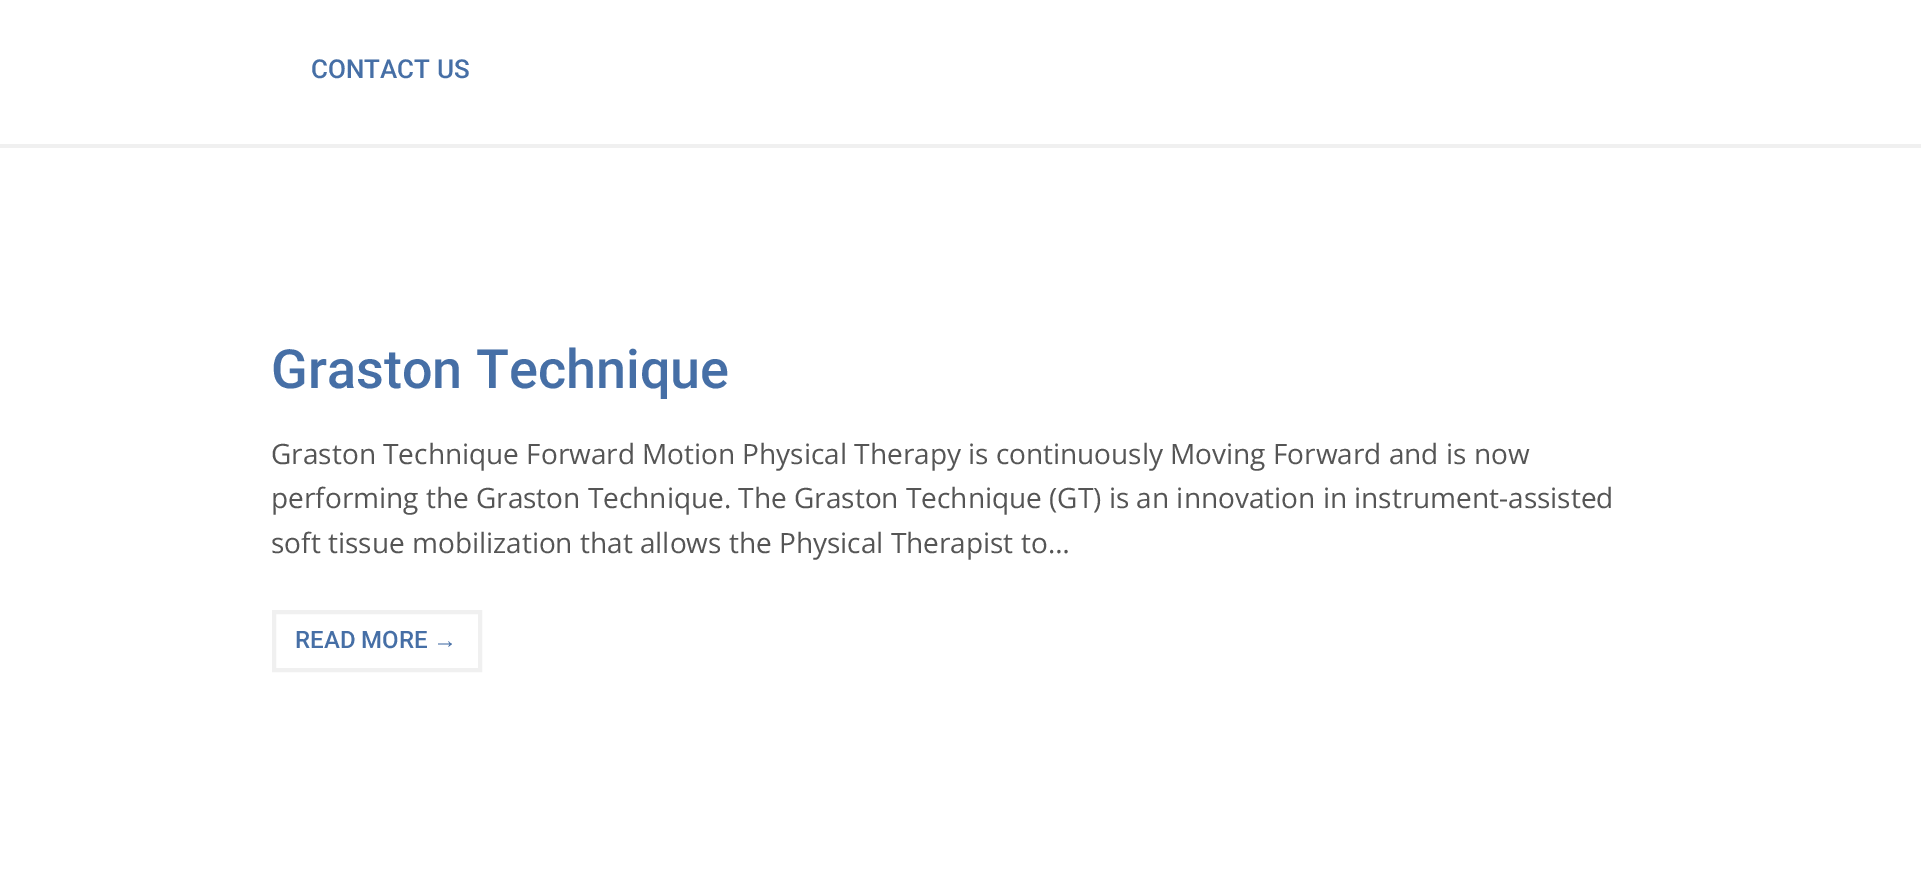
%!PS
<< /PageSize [1921 893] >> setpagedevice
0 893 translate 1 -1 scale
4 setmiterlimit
1 setgray
0 0 1921 893 rectfill
0.941 setgray
0 144 1921 4 rectfill
/Roboto-Medium [26 0 0 -26 0 0] selectfont
0.275 0.435 0.651 setrgbcolor
311 78 moveto (CONTACT US) show
/Roboto-Medium [54 0 0 -54 0 0] selectfont
271 388 moveto (Graston Technique) show
/OpenSans-Regular [28 0 0 -28 0 0] selectfont
0.333 setgray
271 464 moveto (Graston Technique Forward Motion Physical Therapy is continuously Moving Forward and is now) show
271 508 moveto (performing the Graston Technique. The Graston Technique \(GT\) is an innovation in instrument-assisted) show
271 553 moveto (soft tissue mobilization that allows the Physical Therapist to…) show
0.941 setgray
4 setlinewidth
274 612 206 58 rectstroke
/Roboto-Medium [24 0 0 -24 0 0] selectfont
0.275 0.435 0.651 setrgbcolor
295 648 moveto (READ MORE) show
/LiberationSans-Regular [24 0 0 -24 0 0] selectfont
433 648 moveto (→) show
showpage
